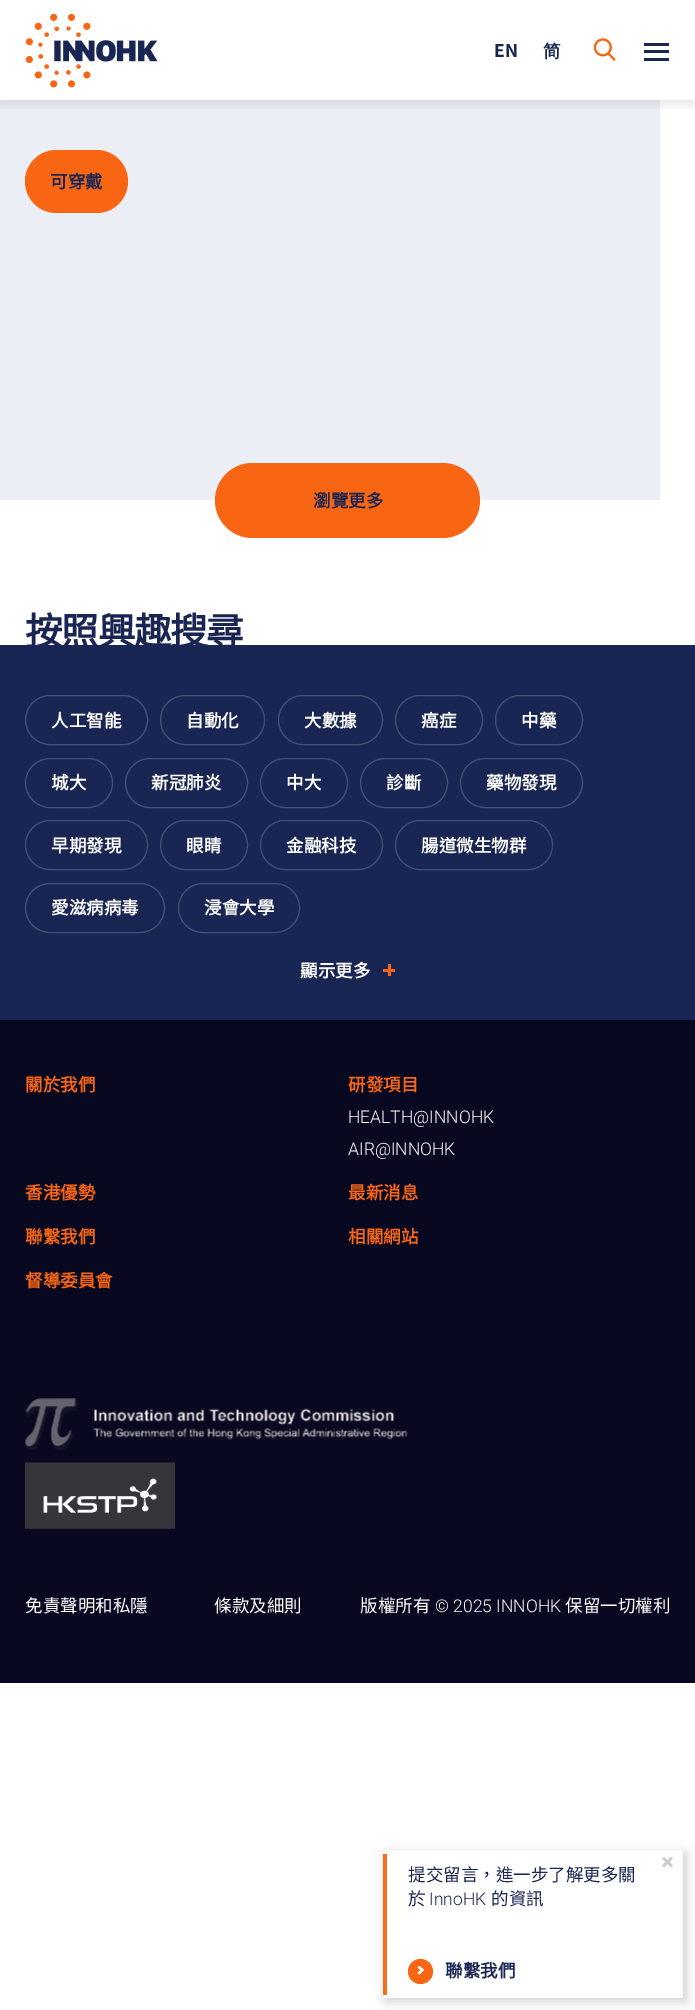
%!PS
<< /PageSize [695 2010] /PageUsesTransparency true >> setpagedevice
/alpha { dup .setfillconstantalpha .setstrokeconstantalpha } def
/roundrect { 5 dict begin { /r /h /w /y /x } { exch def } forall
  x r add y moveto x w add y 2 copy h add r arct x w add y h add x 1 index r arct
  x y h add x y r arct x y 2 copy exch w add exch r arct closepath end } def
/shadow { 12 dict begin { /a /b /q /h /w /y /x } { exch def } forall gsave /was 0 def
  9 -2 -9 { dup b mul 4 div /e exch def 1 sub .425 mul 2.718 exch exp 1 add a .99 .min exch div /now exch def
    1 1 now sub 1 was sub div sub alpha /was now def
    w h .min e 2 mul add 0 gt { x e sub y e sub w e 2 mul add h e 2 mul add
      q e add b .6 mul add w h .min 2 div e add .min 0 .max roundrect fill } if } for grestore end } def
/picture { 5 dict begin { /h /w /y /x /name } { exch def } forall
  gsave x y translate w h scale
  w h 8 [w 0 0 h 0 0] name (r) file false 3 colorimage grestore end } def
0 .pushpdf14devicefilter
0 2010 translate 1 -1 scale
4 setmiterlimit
1 setgray
0 0 695 2010 rectfill
0.925 0.933 0.961 setrgbcolor
0 100 660 400 rectfill
gsave
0 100 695 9 rectclip
0 setgray
0 4 695 100 0 6 0.1 shadow
grestore
(img1.rgb) 25 13 133 75 picture
/NotoSansTC-Bold [17.5 0 0 -17.5 0 0] selectfont
0.098 0.145 0.322 setrgbcolor
494 57 moveto (EN) show
/WenQuanYiZenHei-Bold [17.5 0 0 -17.5 0 0] selectfont
543 57 moveto (简) show
(img2.rgb) 593 38 23 23 picture
644 50 25 3 rectfill
644 43 25 3 rectfill
644 58 25 3 rectfill
0.973 0.4 0.075 setrgbcolor
25 150 103 63 31.5 roundrect fill
/NotoSansCJKHK-Bold [17.5 0 0 -17.5 0 0] selectfont
0.098 0.145 0.322 setrgbcolor
50 188 moveto (可穿戴) show
0.973 0.4 0.075 setrgbcolor
215 463 265 75 37.5 roundrect fill
0.098 0.145 0.322 setrgbcolor
313 507 moveto (瀏覽更多) show
gsave
newpath 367 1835 moveto 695 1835 lineto 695 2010 lineto 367 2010 lineto closepath 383 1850 moveto 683 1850 lineto 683 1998 lineto 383 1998 lineto closepath eoclip newpath
0 setgray
386 1854 300 147 0 6 0.2 shadow
grestore
0.95 alpha
1 setgray
383 1850 300 148 6 roundrect fill
1 alpha
0.973 0.431 0.122 setrgbcolor
383 1854 4 141 rectfill
0.8 setgray
newpath 664 1857 moveto 673 1865.5 lineto 671 1867.5 lineto 662 1858.5 lineto closepath fill
newpath 673 1858.5 moveto 664 1867.5 lineto 662 1865.5 lineto 671 1857 lineto closepath fill
/NotoSansCJKHK-Regular [17.5 0 0 -17.5 0 0] selectfont
0.098 0.145 0.322 setrgbcolor
408 1881 moveto (提交留言，進一步了解更多關) show
408 1905 moveto (於) show
/Roboto-Light [17.5 0 0 -17.5 0 0] selectfont
429 1905 moveto (InnoHK) show
/NotoSansCJKHK-Regular [17.5 0 0 -17.5 0 0] selectfont
491 1905 moveto (的資訊) show
0.973 0.4 0.075 setrgbcolor
newpath 420.5 1971.5 12.5 0 360 arc closepath fill
/NotoSansCJKHK-Bold [17.5 0 0 -17.5 0 0] selectfont
0.098 0.145 0.322 setrgbcolor
445 1977 moveto (聯繫我們) show
1 setgray
newpath 417.5 1967.5 moveto 419.5 1966 lineto 424 1970 lineto 422 1972 lineto closepath fill
newpath 417.5 1973 moveto 422 1968.5 lineto 424 1970 lineto 419.5 1974.5 lineto closepath fill
0.098 0.145 0.322 setrgbcolor
0 645 695 375 rectfill
/NotoSansCJKHK-Bold [37.5 0 0 -37.5 0 0] selectfont
25 645 moveto -1.25 0 (按照興趣搜尋) ashow
0.278 0.318 0.459 setrgbcolor
25.5 695.5 122 49 24.5 roundrect stroke
/NotoSansCJKHK-Bold [17.5 0 0 -17.5 0 0] selectfont
1 setgray
51 727 moveto (人工智能) show
0.278 0.318 0.459 setrgbcolor
160.5 695.5 104 49 24.5 roundrect stroke
1 setgray
186 727 moveto (自動化) show
0.278 0.318 0.459 setrgbcolor
278.5 695.5 104 49 24.5 roundrect stroke
1 setgray
304 727 moveto (大數據) show
0.278 0.318 0.459 setrgbcolor
395.5 695.5 87 49 24.5 roundrect stroke
1 setgray
421 727 moveto (癌症) show
0.278 0.318 0.459 setrgbcolor
495.5 695.5 87 49 24.5 roundrect stroke
1 setgray
521 727 moveto (中藥) show
0.278 0.318 0.459 setrgbcolor
25.5 758.5 87 49 24.5 roundrect stroke
1 setgray
51 789 moveto (城大) show
0.278 0.318 0.459 setrgbcolor
125.5 758.5 122 49 24.5 roundrect stroke
1 setgray
151 789 moveto (新冠肺炎) show
0.278 0.318 0.459 setrgbcolor
260.5 758.5 87 49 24.5 roundrect stroke
1 setgray
286 789 moveto (中大) show
0.278 0.318 0.459 setrgbcolor
360.5 758.5 87 49 24.5 roundrect stroke
1 setgray
386 789 moveto (診斷) show
0.278 0.318 0.459 setrgbcolor
460.5 758.5 122 49 24.5 roundrect stroke
1 setgray
486 789 moveto (藥物發現) show
0.278 0.318 0.459 setrgbcolor
25.5 820.5 122 49 24.5 roundrect stroke
1 setgray
51 852 moveto (早期發現) show
0.278 0.318 0.459 setrgbcolor
160.5 820.5 87 49 24.5 roundrect stroke
1 setgray
186 852 moveto (眼睛) show
0.278 0.318 0.459 setrgbcolor
260.5 820.5 122 49 24.5 roundrect stroke
1 setgray
286 852 moveto (金融科技) show
0.278 0.318 0.459 setrgbcolor
395.5 820.5 157 49 24.5 roundrect stroke
1 setgray
421 852 moveto (腸道微生物群) show
0.278 0.318 0.459 setrgbcolor
25.5 883.5 139 49 24.5 roundrect stroke
1 setgray
51 914 moveto (愛滋病病毒) show
0.278 0.318 0.459 setrgbcolor
178.5 883.5 121 49 24.5 roundrect stroke
1 setgray
204 914 moveto (浸會大學) show
300 977 moveto (顯示更多) show
0.973 0.4 0.075 setrgbcolor
388 964 3 12 rectfill
383 969 12 3 rectfill
0.031 0.031 0.129 setrgbcolor
0 1020 695 663 rectfill
0.973 0.4 0.075 setrgbcolor
25 1091 moveto (關於我們) show
348 1091 moveto (研發項目) show
/Roboto-Light [17.5 0 0 -17.5 0 0] selectfont
1 setgray
348 1123 moveto (HEALTH@INNOHK) show
348 1155 moveto (AIR@INNOHK) show
/NotoSansCJKHK-Bold [17.5 0 0 -17.5 0 0] selectfont
0.973 0.4 0.075 setrgbcolor
25 1199 moveto (香港優勢) show
348 1199 moveto (最新消息) show
25 1243 moveto (聯繫我們) show
348 1243 moveto (相關網站) show
25 1287 moveto (督導委員會) show
(img3.rgb) 25 1398 383 52 picture
(img4.rgb) 25 1462 150 67 picture
/NotoSansCJKHK-Regular [17.5 0 0 -17.5 0 0] selectfont
1 setgray
25 1612 moveto (免責聲明和私隱) show
214 1612 moveto (條款及細則) show
360 1612 moveto (版權所有) show
/Roboto-Light [17.5 0 0 -17.5 0 0] selectfont
435 1612 moveto (© 2025 INNOHK) show
/NotoSansCJKHK-Regular [17.5 0 0 -17.5 0 0] selectfont
565 1612 moveto (保留一切權利) show
.poppdf14devicefilter showpage
